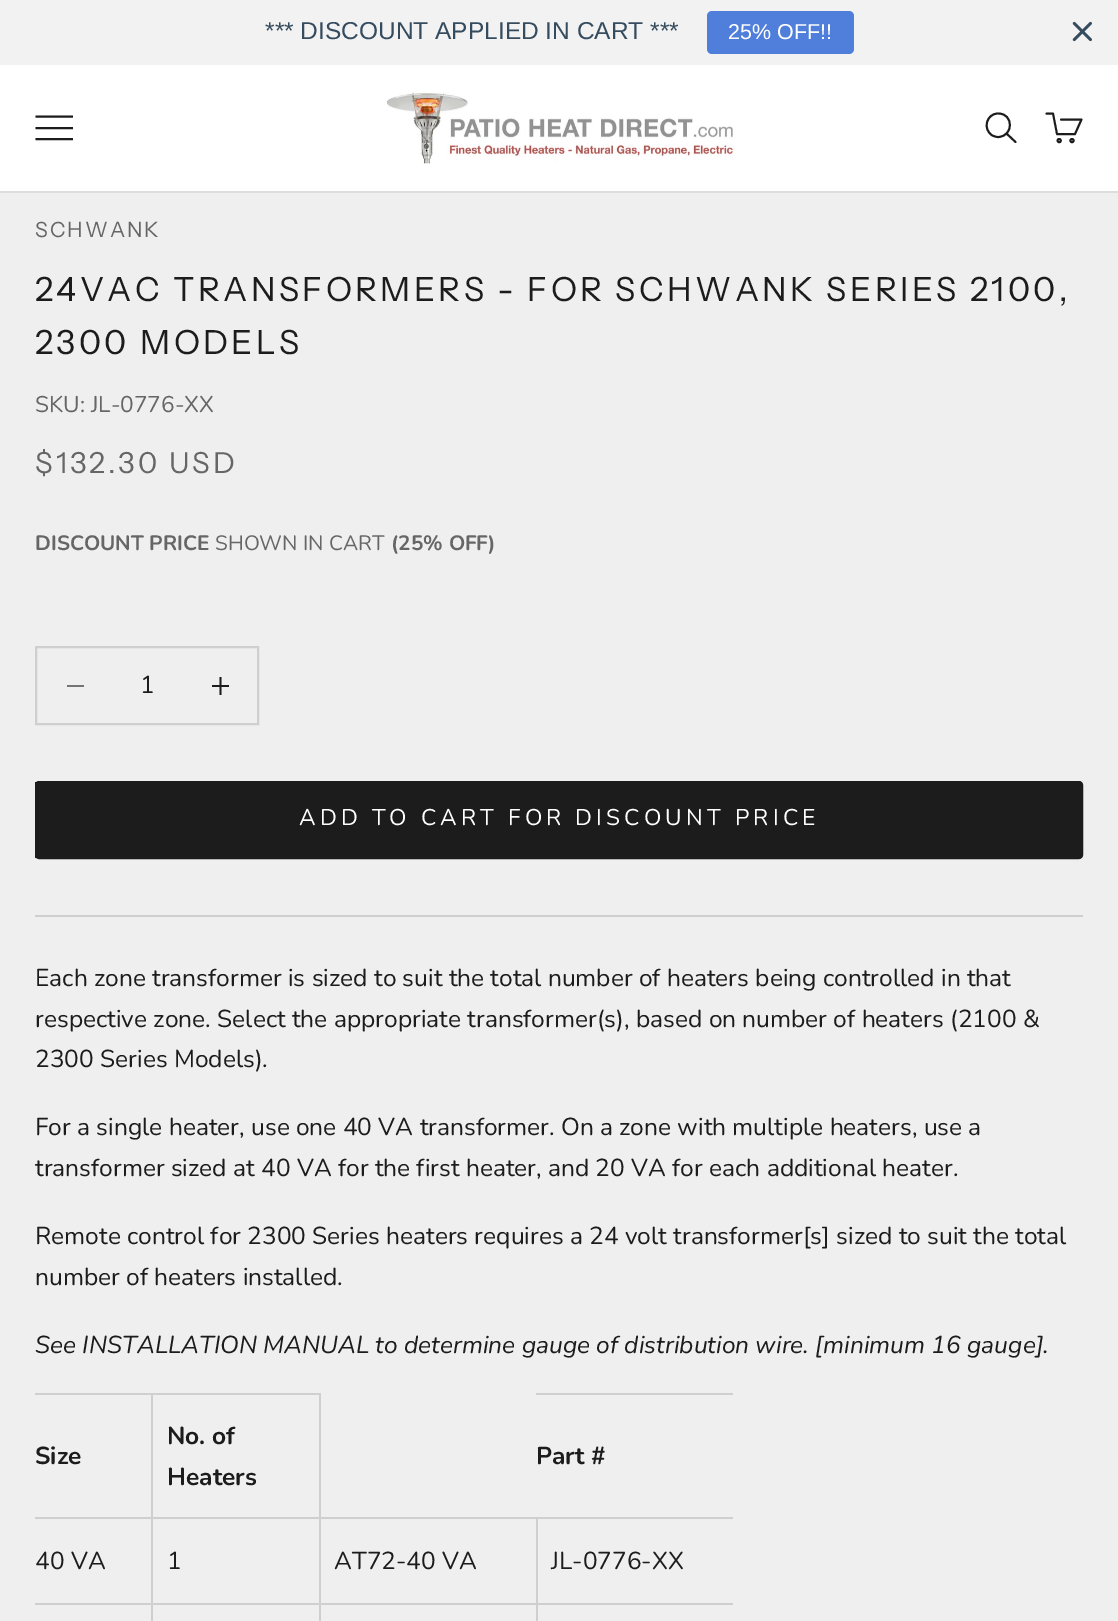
%!PS
<< /PageSize [1118 1621] >> setpagedevice
/roundrect { 5 dict begin { /r /h /w /y /x } { exch def } forall
  x r add y moveto x w add y 2 copy h add r arct x w add y h add x 1 index r arct
  x y h add x y r arct x y 2 copy exch w add exch r arct closepath end } def
/picture { 5 dict begin { /h /w /y /x /name } { exch def } forall
  gsave x y translate w h scale
  w h 8 [w 0 0 h 0 0] name (r) file false 3 colorimage grestore end } def
0 1621 translate 1 -1 scale
4 setmiterlimit
0.937 setgray
0 0 1118 1621 rectfill
0.949 setgray
0 0 1118 65 rectfill
/LiberationSans-Regular [24.5 0 0 -24.5 0 0] selectfont
0.208 0.294 0.369 setrgbcolor
265 39 moveto (*** DISCOUNT APPLIED IN CART ***) show
0.314 0.498 0.859 setrgbcolor
707 11 147 43 5 roundrect fill
/LiberationSans-Regular [21.5 0 0 -21.5 0 0] selectfont
1 setgray
728 39 moveto (25% OFF!!) show
(img1.rgb) 1072 21 20 21 picture
0 65 1118 126 rectfill
0.867 setgray
0 191 1118 2 rectfill
0.11 setgray
1.9 setlinewidth
2 setlinecap
newpath 36.5 139 moveto 72 139 lineto 36.5 128 moveto 72 128 lineto 36.5 116.5 moveto 72 116.5 lineto stroke
(img2.rgb) 386 91 349 73 picture
0 setlinecap
newpath 998.5 113.5 moveto 986.5 113 982 129.5 992.5 135.5 curveto 994 136.5 996.5 137 998.5 137 curveto 1014 136 1013.5 113.5 998.5 113.5 curveto closepath stroke
1 setlinecap
newpath 1007 134 moveto 1015.5 142 lineto stroke
1 setlinejoin
newpath 1061 119.5 moveto 1081.5 119.5 lineto 1075 134 lineto 1057 134 lineto 1053 113.5 lineto 1046.5 113.5 lineto stroke
0 setlinecap
0 setlinejoin
newpath 1059.2 140.6 1.6 0 360 arc closepath stroke
newpath 1072 140.6 1.6 0 360 arc closepath stroke
/InstrumentSans-Regular [21 0 0 -21 0 0] selectfont
0.4 setgray
35 237 moveto 2 0 (SCHWANK) ashow
/InstrumentSans-Regular [33.3 0 0 -33.3 0 0] selectfont
0.11 setgray
35 301 moveto 3.35 0 (24VAC TRANSFORMERS - FOR SCHWANK SERIES 2100,) ashow
35 354 moveto 3.35 0 (2300 MODELS) ashow
/Nunito-Regular [22.75 0 0 -22.75 0 0] selectfont
0.4 setgray
35 412 moveto (SKU: JL-0776-XX) show
/InstrumentSans-Regular [29 0 0 -29 0 0] selectfont
35 473 moveto 2.9 0 ($132.30 USD) ashow
/Nunito-Bold [20.75 0 0 -20.75 0 0] selectfont
35 550 moveto (DISCOUNT PRICE) show
/Nunito-Regular [20.75 0 0 -20.75 0 0] selectfont
215 550 moveto (SHOWN IN CART) show
/Nunito-Bold [20.75 0 0 -20.75 0 0] selectfont
391 550 moveto (\(25% OFF\)) show
0.812 setgray
2 setlinewidth
36 647 222 77 rectstroke
0.455 setgray
67 685 17 2 rectfill
/Nunito-Regular [24.5 0 0 -24.5 0 0] selectfont
0.11 setgray
140 693 moveto (1) show
1.8 setlinewidth
newpath 220.5 677 moveto 220.5 695 lineto 212 686 moveto 229 686 lineto stroke
gsave
35 781 1048 78 4 roundrect clip newpath
35 782 1047 76 rectfill
grestore
2 setlinewidth
36 782 1046 76 3 roundrect stroke
/Nunito-Regular [22.75 0 0 -22.75 0 0] selectfont
1 setgray
299 825 moveto 4.1 0 (ADD TO CART FOR DISCOUNT PRICE) ashow
0.812 setgray
35 915 1048 2 rectfill
/Nunito-Regular [24.5 0 0 -24.5 0 0] selectfont
0.11 setgray
35 986 moveto (Each zone transformer is sized to suit the total number of heaters being controlled in that) show
35 1027 moveto (respective zone. Select the appropriate transformer\(s\), based on number of heaters \(2100 &) show
35 1067 moveto (2300 Series Models\).) show
35 1135 moveto (For a single heater, use one 40 VA transformer. On a zone with multiple heaters, use a) show
35 1176 moveto (transformer sized at 40 VA for the first heater, and 20 VA for each additional heater.) show
35 1244 moveto (Remote control for 2300 Series heaters requires a 24 volt transformer[s] sized to suit the total) show
35 1285 moveto (number of heaters installed.) show
/Nunito-Italic [24.5 0 0 -24.5 0 0] selectfont
35 1353 moveto (See INSTALLATION MANUAL to determine gauge of distribution wire. [minimum 16 gauge].) show
0.812 setgray
536 1517 197 2 rectfill
536 1603 197 2 rectfill
536 1603 2 18 rectfill
319 1603 218 2 rectfill
536 1517 2 88 rectfill
319 1517 218 2 rectfill
319 1603 2 18 rectfill
151 1603 169 2 rectfill
319 1517 2 88 rectfill
151 1517 169 2 rectfill
319 1393 2 126 rectfill
151 1393 169 2 rectfill
151 1603 2 18 rectfill
35 1603 117 2 rectfill
151 1517 2 88 rectfill
35 1517 117 2 rectfill
151 1393 2 126 rectfill
35 1393 117 2 rectfill
/Nunito-Bold [24.5 0 0 -24.5 0 0] selectfont
0.11 setgray
35 1464 moveto (Size) show
167 1444 moveto (No. of) show
167 1485 moveto (Heaters) show
0.812 setgray
536 1393 197 2 rectfill
0.11 setgray
536 1464 moveto (Part #) show
/Nunito-Regular [24.5 0 0 -24.5 0 0] selectfont
35 1569 moveto (40 VA) show
167 1569 moveto (1) show
334 1569 moveto (AT72-40 VA) show
551 1569 moveto (JL-0776-XX) show
showpage
